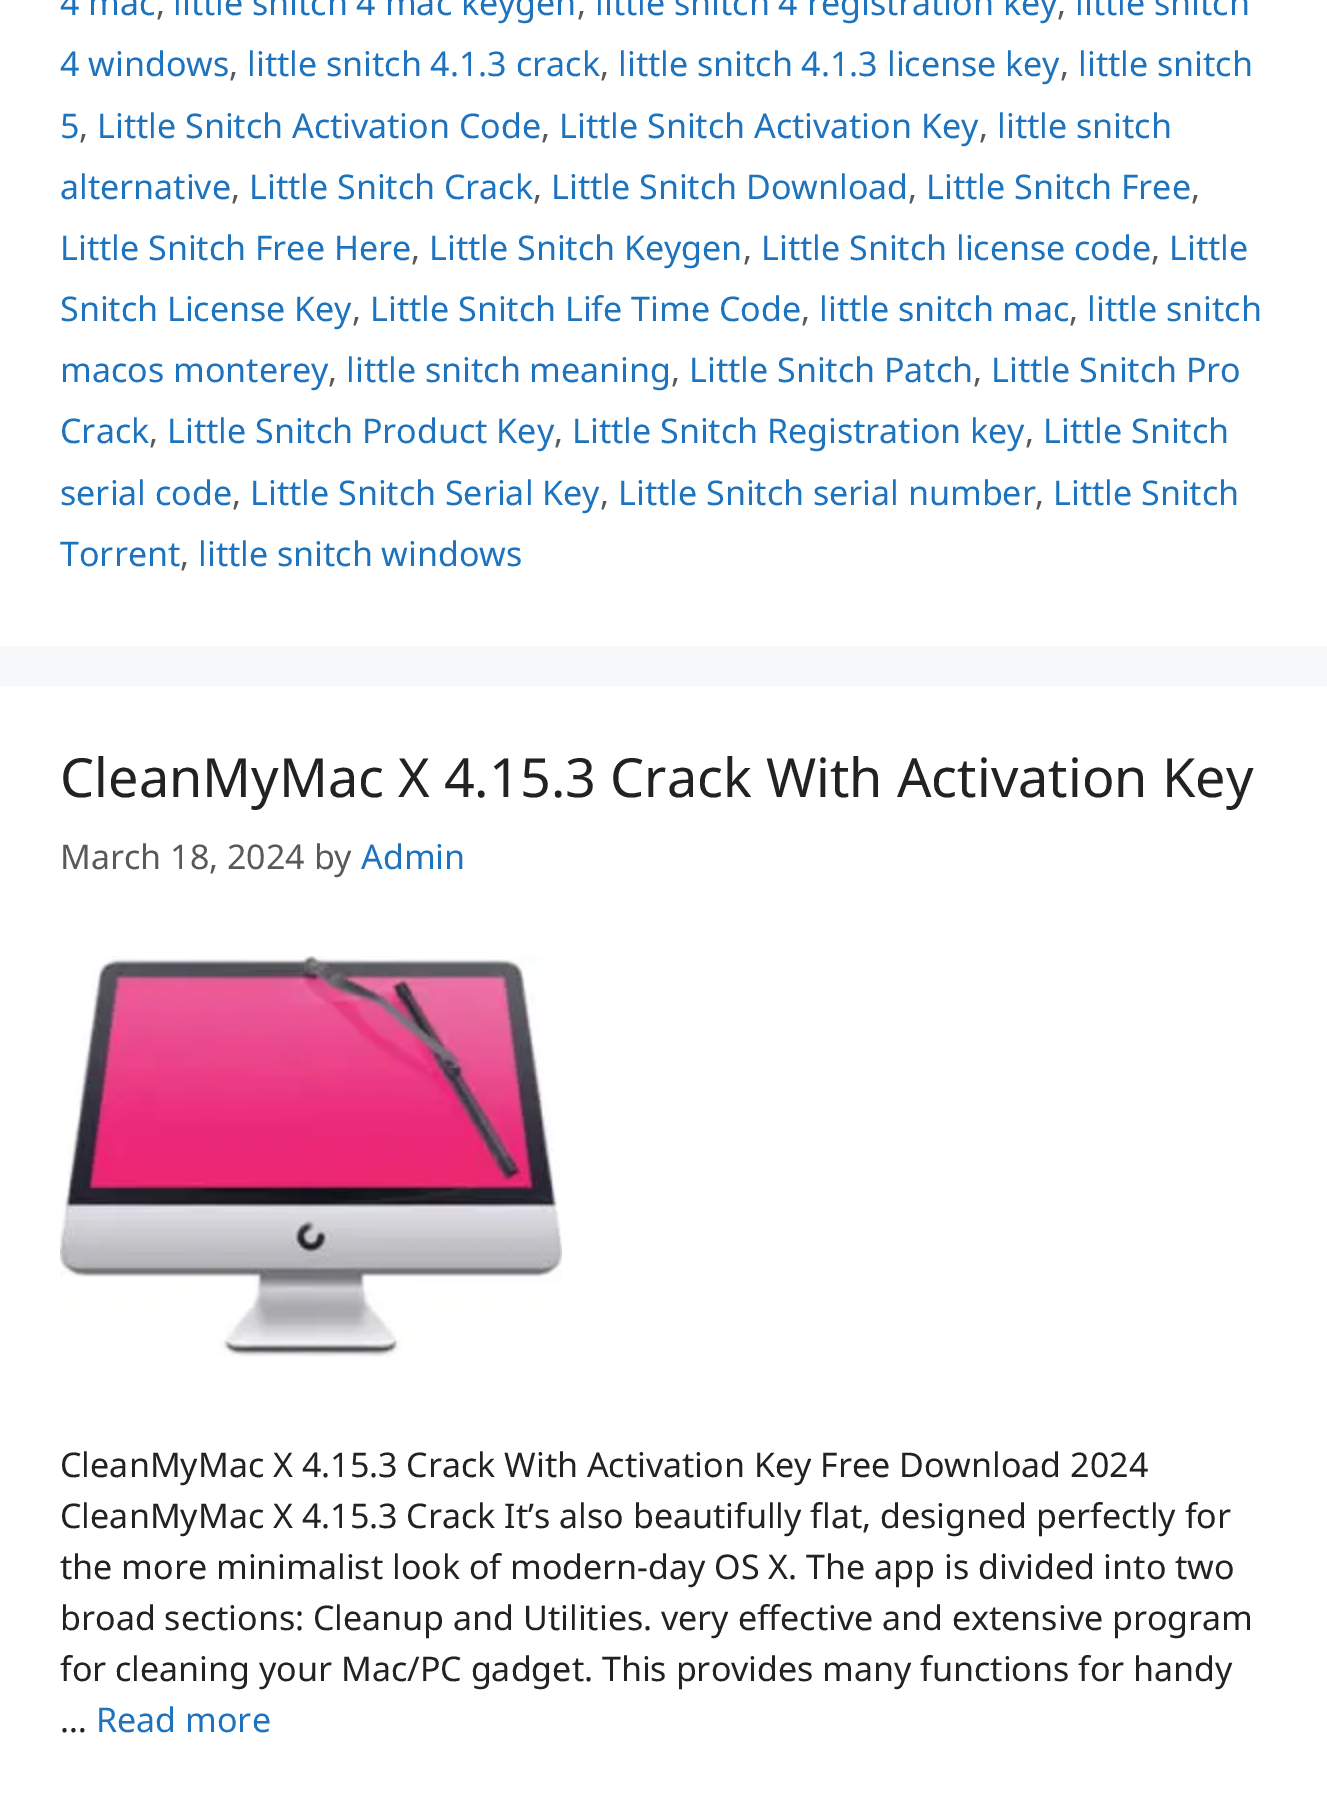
%!PS
<< /PageSize [1327 1796] >> setpagedevice
/picture { 5 dict begin { /h /w /y /x /name } { exch def } forall
  gsave x y translate w h scale
  w h 8 [w 0 0 h 0 0] name (r) file false 3 colorimage grestore end } def
0 1796 translate 1 -1 scale
4 setmiterlimit
0.969 0.973 0.976 setrgbcolor
0 0 1327 1796 rectfill
1 setgray
0 0 1327 646 rectfill
/NotoSans-Regular [34 0 0 -34 0 0] selectfont
0.118 0.451 0.745 setrgbcolor
60 15 moveto (4 mac) show
0.349 setgray
156 15 moveto (,) show
0.118 0.451 0.745 setrgbcolor
173 15 moveto (little snitch 4 mac keygen) show
0.349 setgray
577 15 moveto (,) show
0.118 0.451 0.745 setrgbcolor
595 15 moveto (little snitch 4 registration key) show
0.349 setgray
1057 15 moveto (,) show
0.118 0.451 0.745 setrgbcolor
1075 15 moveto (little snitch) show
60 76 moveto (4 windows) show
0.349 setgray
229 76 moveto (,) show
0.118 0.451 0.745 setrgbcolor
247 76 moveto (little snitch 4.1.3 crack) show
0.349 setgray
600 76 moveto (,) show
0.118 0.451 0.745 setrgbcolor
618 76 moveto (little snitch 4.1.3 license key) show
0.349 setgray
1060 76 moveto (,) show
0.118 0.451 0.745 setrgbcolor
1078 76 moveto (little snitch) show
60 138 moveto (5) show
0.349 setgray
79 138 moveto (,) show
0.118 0.451 0.745 setrgbcolor
97 138 moveto (Little Snitch Activation Code) show
0.349 setgray
541 138 moveto (,) show
0.118 0.451 0.745 setrgbcolor
559 138 moveto (Little Snitch Activation Key) show
0.349 setgray
979 138 moveto (,) show
0.118 0.451 0.745 setrgbcolor
997 138 moveto (little snitch) show
60 199 moveto (alternative) show
0.349 setgray
231 199 moveto (,) show
0.118 0.451 0.745 setrgbcolor
249 199 moveto (Little Snitch Crack) show
0.349 setgray
533 199 moveto (,) show
0.118 0.451 0.745 setrgbcolor
551 199 moveto (Little Snitch Download) show
0.349 setgray
908 199 moveto (,) show
0.118 0.451 0.745 setrgbcolor
926 199 moveto (Little Snitch Free) show
0.349 setgray
1191 199 moveto (,) show
0.118 0.451 0.745 setrgbcolor
60 260 moveto (Little Snitch Free Here) show
0.349 setgray
411 260 moveto (,) show
0.118 0.451 0.745 setrgbcolor
429 260 moveto (Little Snitch Keygen) show
0.349 setgray
743 260 moveto (,) show
0.118 0.451 0.745 setrgbcolor
761 260 moveto (Little Snitch license code) show
0.349 setgray
1151 260 moveto (,) show
0.118 0.451 0.745 setrgbcolor
1169 260 moveto (Little) show
60 321 moveto (Snitch License Key) show
0.349 setgray
352 321 moveto (,) show
0.118 0.451 0.745 setrgbcolor
370 321 moveto (Little Snitch Life Time Code) show
0.349 setgray
801 321 moveto (,) show
0.118 0.451 0.745 setrgbcolor
819 321 moveto (little snitch mac) show
0.349 setgray
1069 321 moveto (,) show
0.118 0.451 0.745 setrgbcolor
1087 321 moveto (little snitch) show
60 382 moveto (macos monterey) show
0.349 setgray
328 382 moveto (,) show
0.118 0.451 0.745 setrgbcolor
346 382 moveto (little snitch meaning) show
0.349 setgray
671 382 moveto (,) show
0.118 0.451 0.745 setrgbcolor
689 382 moveto (Little Snitch Patch) show
0.349 setgray
973 382 moveto (,) show
0.118 0.451 0.745 setrgbcolor
991 382 moveto (Little Snitch Pro) show
60 443 moveto (Crack) show
0.349 setgray
149 443 moveto (,) show
0.118 0.451 0.745 setrgbcolor
167 443 moveto (Little Snitch Product Key) show
0.349 setgray
554 443 moveto (,) show
0.118 0.451 0.745 setrgbcolor
572 443 moveto (Little Snitch Registration key) show
0.349 setgray
1025 443 moveto (,) show
0.118 0.451 0.745 setrgbcolor
1043 443 moveto (Little Snitch) show
60 505 moveto (serial code) show
0.349 setgray
232 505 moveto (,) show
0.118 0.451 0.745 setrgbcolor
250 505 moveto (Little Snitch Serial Key) show
0.349 setgray
600 505 moveto (,) show
0.118 0.451 0.745 setrgbcolor
618 505 moveto (Little Snitch serial number) show
0.349 setgray
1035 505 moveto (,) show
0.118 0.451 0.745 setrgbcolor
1053 505 moveto (Little Snitch) show
60 566 moveto (Torrent) show
0.349 setgray
180 566 moveto (,) show
0.118 0.451 0.745 setrgbcolor
198 566 moveto (little snitch windows) show
1 setgray
0 686 1327 1110 rectfill
/NotoSans-Regular [54 0 0 -54 0 0] selectfont
0.133 setgray
60 797 moveto (CleanMyMac X 4.15.3 Crack With Activation Key) show
/NotoSans-Regular [34 0 0 -34 0 0] selectfont
0.349 setgray
60 869 moveto (March 18, 2024 by) show
0.118 0.451 0.745 setrgbcolor
361 869 moveto (Admin) show
(img1.rgb) 60 956 502 401 picture
0.133 setgray
60 1477 moveto (CleanMyMac X 4.15.3 Crack With Activation Key Free Download 2024) show
60 1528 moveto (CleanMyMac X 4.15.3 Crack It’s also beautifully flat, designed perfectly for) show
60 1579 moveto (the more minimalist look of modern-day OS X. The app is divided into two) show
60 1630 moveto (broad sections: Cleanup and Utilities. very effective and extensive program) show
60 1681 moveto (for cleaning your Mac/PC gadget. This provides many functions for handy) show
60 1732 moveto (…) show
0.118 0.451 0.745 setrgbcolor
96 1732 moveto (Read more) show
showpage
